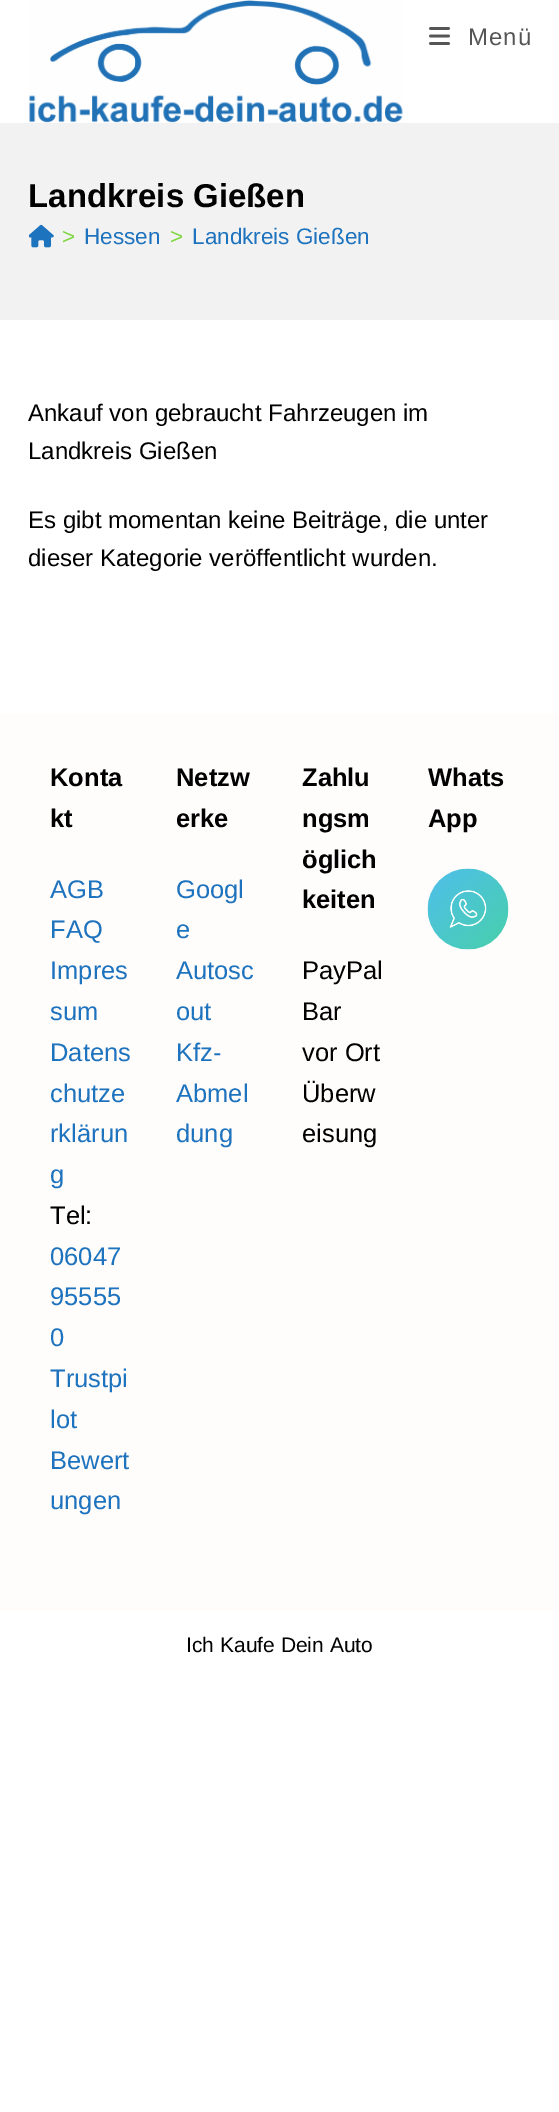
%!PS
<< /PageSize [559 2112] >> setpagedevice
/picture { 5 dict begin { /h /w /y /x /name } { exch def } forall
  gsave x y translate w h scale
  w h 8 [w 0 0 h 0 0] name (r) file false 3 colorimage grestore end } def
0 2112 translate 1 -1 scale
4 setmiterlimit
1 setgray
0 0 559 2112 rectfill
(img1.rgb) 29 0 374 123 picture
(img2.rgb) 429 27 21 18 picture
/LiberationSans-Regular [24 0 0 -24 0 0] selectfont
0.333 setgray
468 45 moveto 1 0 (Menü) ashow
0.949 setgray
0 123 559 197 rectfill
/LiberationSans-Bold [33 0 0 -33 0 0] selectfont
0 setgray
28 207 moveto (Landkreis Gießen) show
(img3.rgb) 29 224 25 24 picture
/LiberationSans-Regular [22.5 0 0 -22.5 0 0] selectfont
0.506 0.843 0.259 setrgbcolor
62 244 moveto (>) show
0.118 0.451 0.745 setrgbcolor
84 244 moveto (Hessen) show
0.506 0.843 0.259 setrgbcolor
170 244 moveto (>) show
0.118 0.451 0.745 setrgbcolor
192 244 moveto (Landkreis Gießen) show
/LiberationSans-Regular [24 0 0 -24 0 0] selectfont
0 setgray
28 421 moveto (Ankauf von gebraucht Fahrzeugen im) show
28 459 moveto (Landkreis Gießen) show
28 528 moveto (Es gibt momentan keine Beiträge, die unter) show
28 566 moveto (dieser Kategorie veröffentlicht wurden.) show
1 0.988 0.988 setrgbcolor
0 713 559 898 rectfill
/LiberationSans-Bold [25.5 0 0 -25.5 0 0] selectfont
0 setgray
50 786 moveto (Konta) show
50 827 moveto (kt) show
/LiberationSans-Regular [25.5 0 0 -25.5 0 0] selectfont
0.118 0.451 0.745 setrgbcolor
50 898 moveto (AGB) show
50 938 moveto (FAQ) show
50 979 moveto (Impres) show
50 1020 moveto (sum) show
50 1061 moveto (Datens) show
50 1102 moveto (chutze) show
50 1142 moveto (rklärun) show
50 1183 moveto (g) show
0 setgray
50 1224 moveto (Tel:) show
0.118 0.451 0.745 setrgbcolor
50 1265 moveto (06047) show
50 1305 moveto (95555) show
50 1346 moveto (0) show
50 1387 moveto (Trustpi) show
50 1428 moveto (lot) show
50 1469 moveto (Bewert) show
50 1509 moveto (ungen) show
/LiberationSans-Bold [25.5 0 0 -25.5 0 0] selectfont
0 setgray
176 786 moveto (Netzw) show
176 827 moveto (erke) show
/LiberationSans-Regular [25.5 0 0 -25.5 0 0] selectfont
0.118 0.451 0.745 setrgbcolor
176 898 moveto (Googl) show
176 938 moveto (e) show
176 979 moveto (Autosc) show
176 1020 moveto (out) show
176 1061 moveto (Kfz-) show
176 1102 moveto (Abmel) show
176 1142 moveto (dung) show
/LiberationSans-Bold [25.5 0 0 -25.5 0 0] selectfont
0 setgray
302 786 moveto (Zahlu) show
302 827 moveto (ngsm) show
302 868 moveto (öglich) show
302 908 moveto (keiten) show
/LiberationSans-Regular [25.5 0 0 -25.5 0 0] selectfont
302 979 moveto (PayPal) show
302 1020 moveto (Bar) show
302 1061 moveto (vor Ort) show
302 1102 moveto (Überw) show
302 1142 moveto (eisung) show
/LiberationSans-Bold [25.5 0 0 -25.5 0 0] selectfont
428 786 moveto (Whats) show
428 827 moveto (App) show
(img4.rgb) 427 868 82 82 picture
/LiberationSans-Regular [21 0 0 -21 0 0] selectfont
186 1652 moveto (Ich Kaufe Dein Auto) show
showpage
